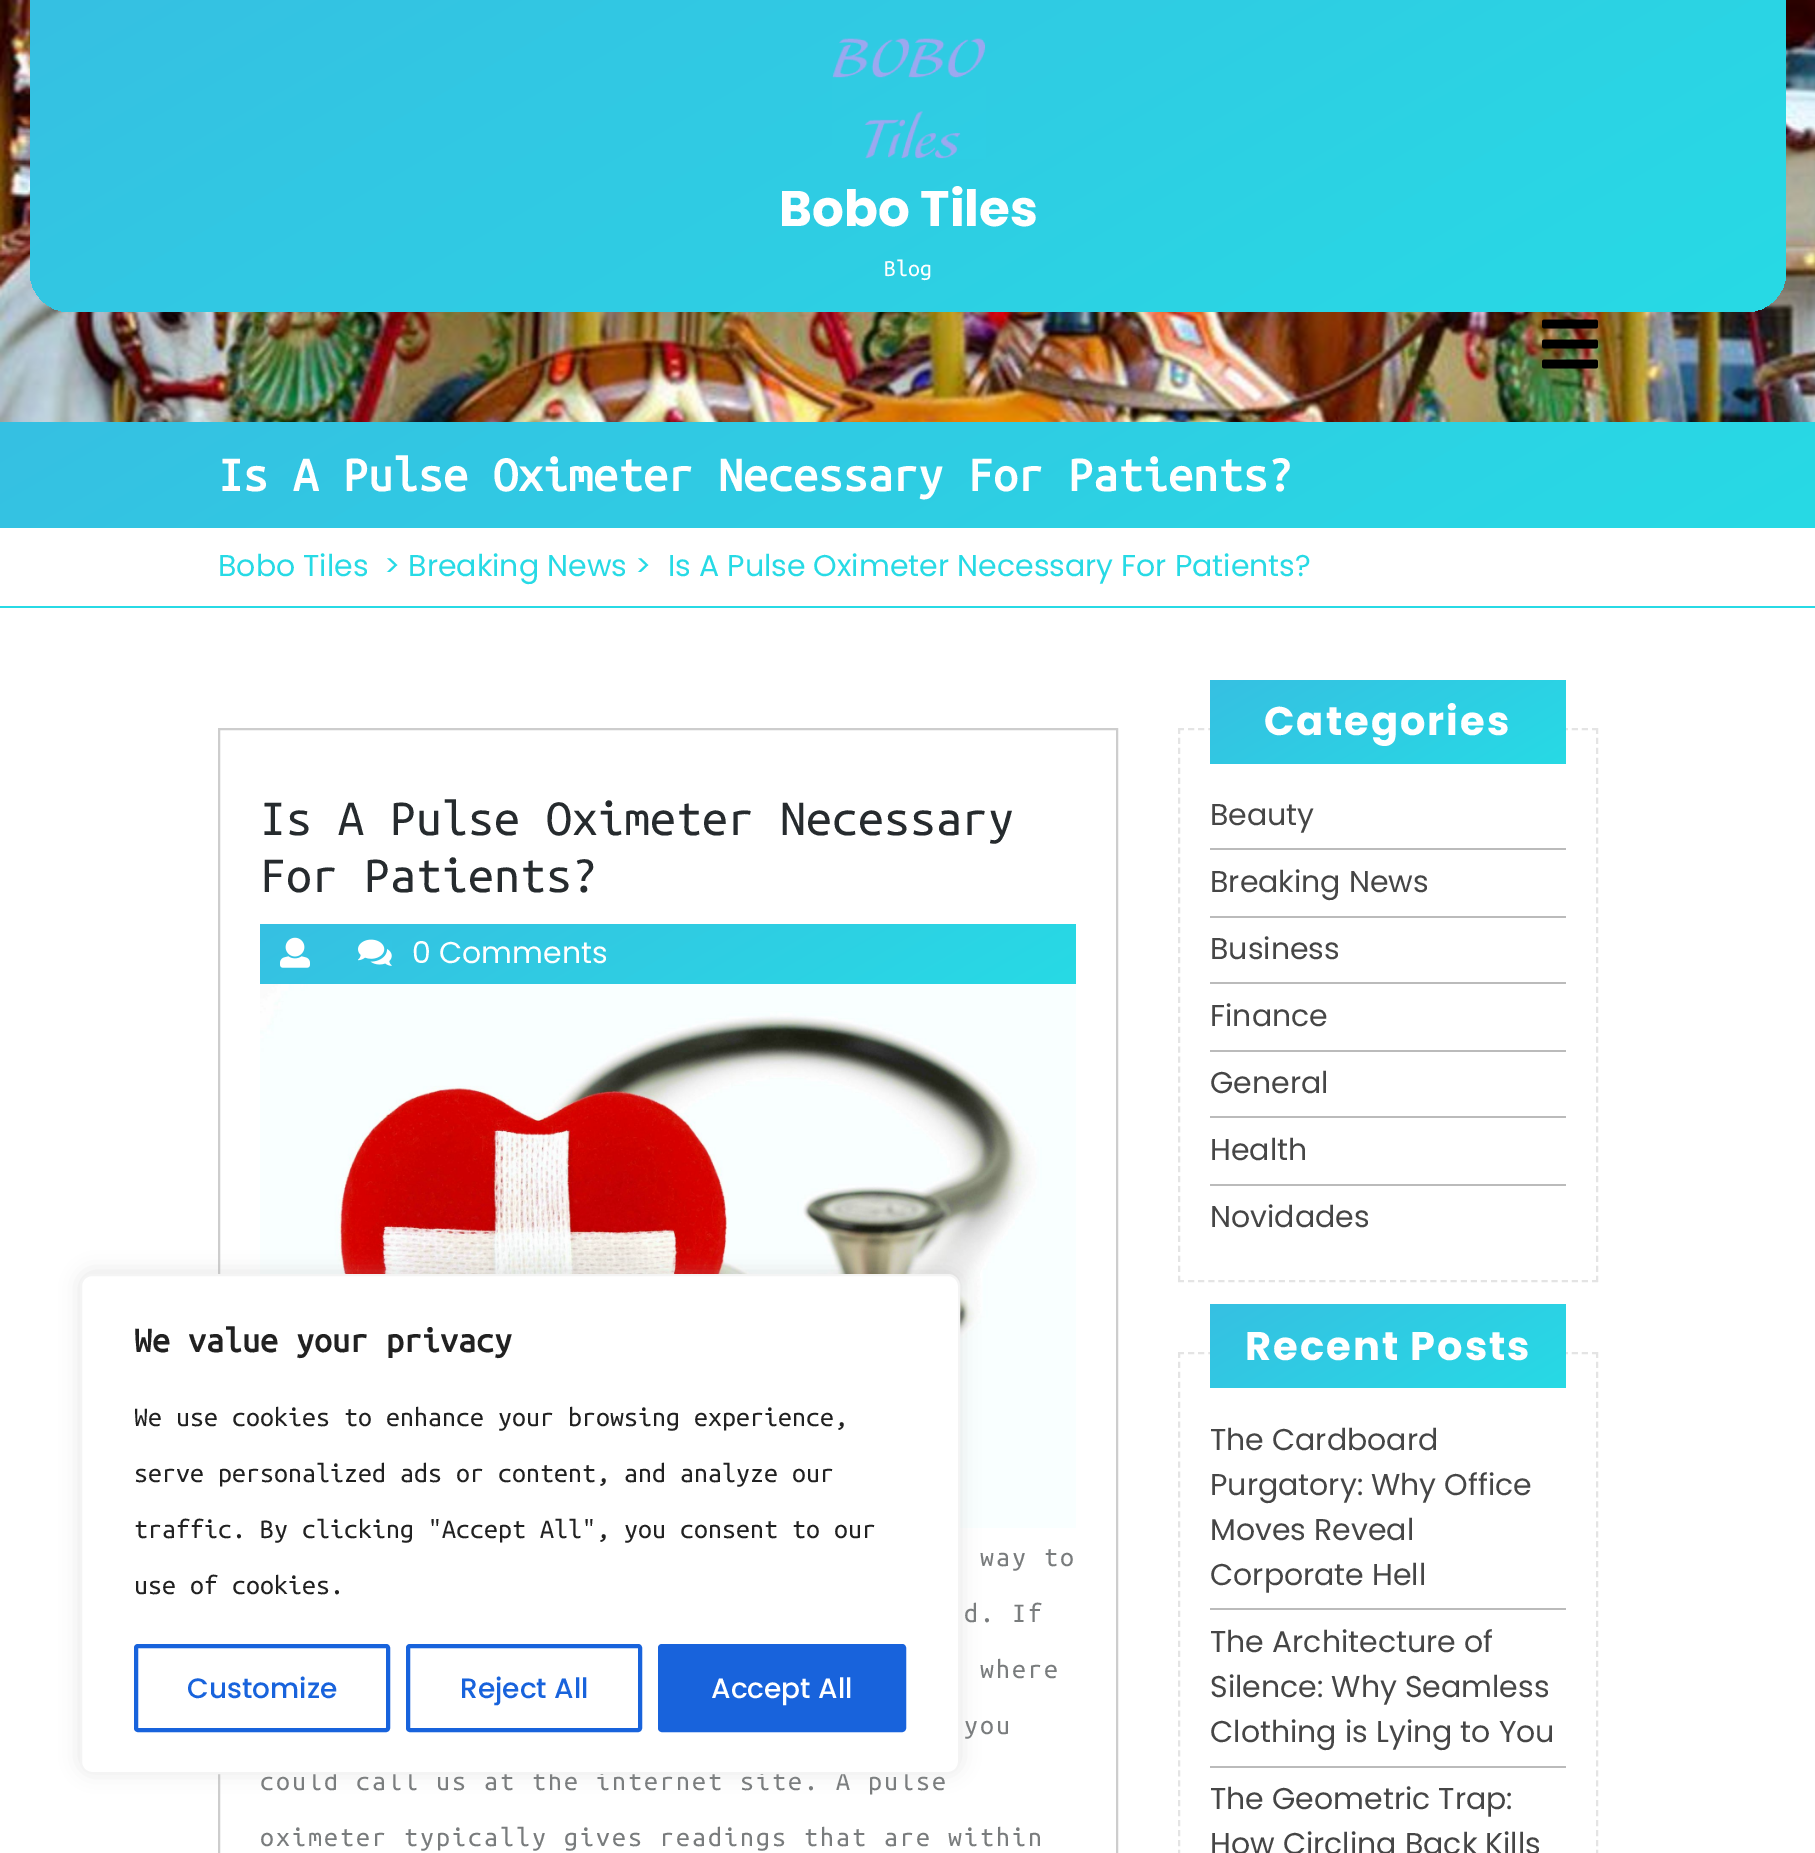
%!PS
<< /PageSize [1815 1853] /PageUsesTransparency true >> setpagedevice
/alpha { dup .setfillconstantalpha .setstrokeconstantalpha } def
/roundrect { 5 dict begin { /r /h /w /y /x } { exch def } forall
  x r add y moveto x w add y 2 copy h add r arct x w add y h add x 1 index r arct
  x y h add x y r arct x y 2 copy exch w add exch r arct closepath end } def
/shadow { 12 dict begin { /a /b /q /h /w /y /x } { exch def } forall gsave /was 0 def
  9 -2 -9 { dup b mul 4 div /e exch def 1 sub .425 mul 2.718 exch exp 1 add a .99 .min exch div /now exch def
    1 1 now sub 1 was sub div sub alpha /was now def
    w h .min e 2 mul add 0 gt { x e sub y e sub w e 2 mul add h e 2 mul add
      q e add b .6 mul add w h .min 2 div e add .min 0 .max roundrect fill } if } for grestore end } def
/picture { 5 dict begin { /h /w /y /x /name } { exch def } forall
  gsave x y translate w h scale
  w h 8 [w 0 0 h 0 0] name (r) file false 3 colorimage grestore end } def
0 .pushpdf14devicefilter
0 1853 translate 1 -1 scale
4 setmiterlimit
1 setgray
0 0 1815 1853 rectfill
(img1.rgb) 0 0 1815 422 picture
gsave newpath 30 0 moveto 1786 0 lineto 1786 272 lineto 1786 294 1768 312 1746 312 curveto 70 312 lineto 48 312 30 294 30 272 curveto closepath clip newpath
<< /ShadingType 2 /ColorSpace /DeviceRGB /Coords [1195 653 621 -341] /Extend [true true] /Function << /FunctionType 2 /Domain [0 1] /C0 [0.153 0.855 0.898] /C1 [0.212 0.753 0.886] /N 1 >> >> shfill grestore
(img2.rgb) 832 38 154 121 picture
/Poppins-Bold [50 0 0 -50 0 0] selectfont
779 226 moveto (Bobo Tiles) show
/UbuntuMono-Regular [24 0 0 -24 0 0] selectfont
884 276 moveto (Blog) show
(img3.rgb) 1542 319 56 50 picture
gsave newpath 0 422 moveto 1815 422 lineto 1815 528 lineto 0 528 lineto closepath clip newpath
<< /ShadingType 2 /ColorSpace /DeviceRGB /Coords [1158 908 658 42] /Extend [true true] /Function << /FunctionType 2 /Domain [0 1] /C0 [0.153 0.855 0.898] /C1 [0.212 0.753 0.886] /N 1 >> >> shfill grestore
/UbuntuMono-Bold [50 0 0 -50 0 0] selectfont
218 491 moveto (Is A Pulse Oximeter Necessary For Patients?) show
0.153 0.855 0.898 setrgbcolor
0 606 1815 2 rectfill
/Poppins-Regular [30 0 0 -30 0 0] selectfont
218 576 moveto (Bobo Tiles) show
384 576 moveto (> Breaking News >) show
668 576 moveto (Is A Pulse Oximeter Necessary For Patients?) show
0.804 setgray
2 setlinewidth
219 729 898 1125 rectstroke
/UbuntuMono-Regular [52 0 0 -52 0 0] selectfont
0.149 0.169 0.18 setrgbcolor
260 835 moveto (Is A Pulse Oximeter Necessary) show
260 892 moveto (For Patients?) show
gsave newpath 260 924 moveto 1076 924 lineto 1076 984 lineto 260 984 lineto closepath clip newpath
<< /ShadingType 2 /ColorSpace /DeviceRGB /Coords [783 1153 553 755] /Extend [true true] /Function << /FunctionType 2 /Domain [0 1] /C0 [0.153 0.855 0.898] /C1 [0.212 0.753 0.886] /N 1 >> >> shfill grestore
(img4.rgb) 280 937 30 31 picture
(img5.rgb) 358 939 34 27 picture
/Poppins-Regular [30 0 0 -30 0 0] selectfont
1 setgray
412 963 moveto (0 Comments) show
(img6.rgb) 260 984 816 544 picture
/UbuntuMono-Regular [28 0 0 -28 0 0] selectfont
0.475 0.486 0.49 setrgbcolor
980 1566 moveto 2 0 (way to) ashow
964 1622 moveto 2 0 (d. If) ashow
980 1678 moveto 2 0 (where) ashow
964 1734 moveto 2 0 (you) ashow
260 1790 moveto 2 0 (could call us at the internet site. A pulse) ashow
260 1846 moveto 2 0 (oximeter typically gives readings that are within) ashow
0.894 setgray
[6 4.1] 0 setdash
newpath 1178 729 moveto 1598 729 lineto stroke
[6 3.96] 0 setdash
newpath 1597 728 moveto 1597 1282 lineto stroke
[6 4.1] 0 setdash
newpath 1178 1281 moveto 1598 1281 lineto stroke
[6 3.96] 0 setdash
newpath 1179 728 moveto 1179 1282 lineto stroke
gsave newpath 1210 680 moveto 1566 680 lineto 1566 764 lineto 1210 764 lineto closepath clip newpath
<< /ShadingType 2 /ColorSpace /DeviceRGB /Coords [1451 831 1325 613] /Extend [true true] /Function << /FunctionType 2 /Domain [0 1] /C0 [0.153 0.855 0.898] /C1 [0.212 0.753 0.886] /N 1 >> >> shfill grestore
/Poppins-Bold [40 0 0 -40 0 0] selectfont
1 setgray
1264 735 moveto 2 0 (Categories) ashow
0.733 setgray
1210 848 356 2 rectfill
/Poppins-Regular [30 0 0 -30 0 0] selectfont
0.275 setgray
1210 825 moveto (Beauty) show
0.733 setgray
1210 916 356 2 rectfill
0.275 setgray
1210 892 moveto (Breaking News) show
0.733 setgray
1210 982 356 2 rectfill
0.275 setgray
1210 959 moveto (Business) show
0.733 setgray
1210 1050 356 2 rectfill
0.275 setgray
1210 1026 moveto (Finance) show
0.733 setgray
1210 1116 356 2 rectfill
0.275 setgray
1210 1093 moveto (General) show
0.733 setgray
1210 1184 356 2 rectfill
0.275 setgray
1210 1160 moveto (Health) show
1210 1227 moveto (Novidades) show
0.894 setgray
[6 4.1] 0 setdash
newpath 1178 1353 moveto 1598 1353 lineto stroke
[6 3.96] 0 setdash
newpath 1597 1352 moveto 1597 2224 lineto stroke
newpath 1179 1352 moveto 1179 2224 lineto stroke
gsave newpath 1210 1304 moveto 1566 1304 lineto 1566 1388 lineto 1210 1388 lineto closepath clip newpath
<< /ShadingType 2 /ColorSpace /DeviceRGB /Coords [1451 1455 1325 1237] /Extend [true true] /Function << /FunctionType 2 /Domain [0 1] /C0 [0.153 0.855 0.898] /C1 [0.212 0.753 0.886] /N 1 >> >> shfill grestore
/Poppins-Bold [40 0 0 -40 0 0] selectfont
1 setgray
1245 1360 moveto 2 0 (Recent Posts) ashow
0.733 setgray
1210 1608 356 2 rectfill
/Poppins-Regular [30 0 0 -30 0 0] selectfont
0.275 setgray
1210 1450 moveto (The Cardboard) show
1210 1495 moveto (Purgatory: Why Office) show
1210 1540 moveto (Moves Reveal) show
1210 1585 moveto (Corporate Hell) show
0.733 setgray
1210 1766 356 2 rectfill
0.275 setgray
1210 1652 moveto (The Architecture of) show
1210 1697 moveto (Silence: Why Seamless) show
1210 1742 moveto (Clothing is Lying to You) show
1210 1809 moveto (The Geometric Trap:) show
1210 1854 moveto (How Circling Back Kills) show
0.675 0.671 0.671 setrgbcolor
80 1272 880 500 12 10 0.3 shadow
1 setgray
81 1275 878 498 11 roundrect gsave fill grestore
0.957 setgray
[] 0 setdash
stroke
/UbuntuMono-Bold [36 0 0 -36 0 0] selectfont
0.129 setgray
134 1352 moveto (We value your privacy) show
/UbuntuMono-Regular [28 0 0 -28 0 0] selectfont
134 1426 moveto (We use cookies to enhance your browsing experience,) show
134 1482 moveto (serve personalized ads or content, and analyze our) show
134 1538 moveto (traffic. By clicking "Accept All", you consent to our) show
134 1594 moveto (use of cookies.) show
0.094 0.388 0.863 setrgbcolor
4 setlinewidth
136 1646 252 84 2 roundrect stroke
/Poppins-Medium [28 0 0 -28 0 0] selectfont
187 1698 moveto (Customize) show
408 1646 232 84 2 roundrect stroke
460 1698 moveto (Reject All) show
660 1646 244 84 2 roundrect gsave fill grestore
stroke
1 setgray
711 1698 moveto (Accept All) show
.poppdf14devicefilter showpage
